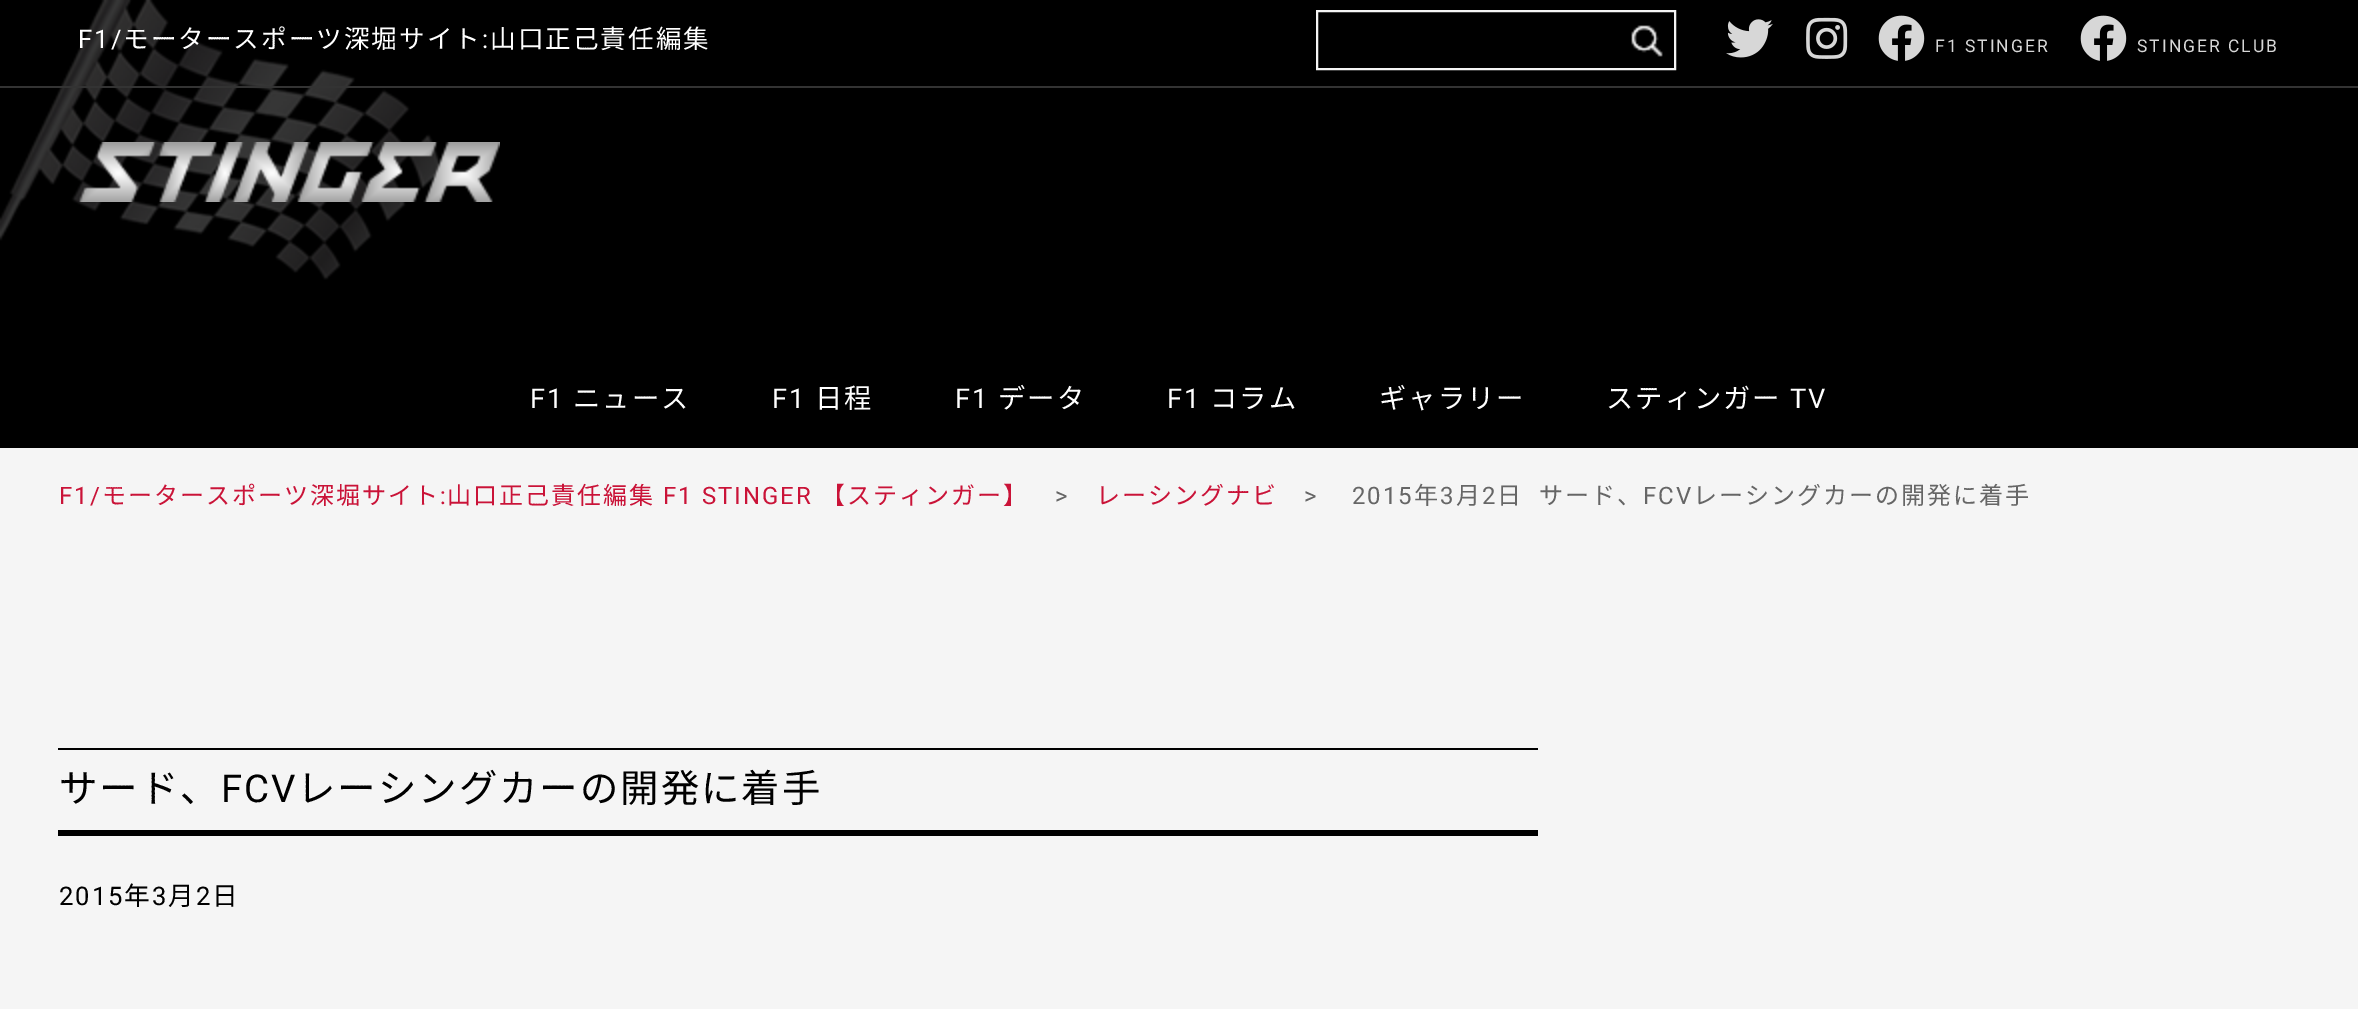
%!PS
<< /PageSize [2358 1009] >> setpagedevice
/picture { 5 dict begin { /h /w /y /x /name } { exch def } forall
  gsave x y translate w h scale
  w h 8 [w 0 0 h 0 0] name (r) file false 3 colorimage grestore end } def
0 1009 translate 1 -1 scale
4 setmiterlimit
0.961 setgray
0 0 2358 1009 rectfill
0 setgray
0 0 2358 448 rectfill
(img1.rgb) 0 0 442 280 picture
0.2 setgray
0 86 2358 2 rectfill
/Roboto-Regular [25.6 0 0 -25.6 0 0] selectfont
1 setgray
78 48 moveto 2 0 (F1/) ashow
/NotoSansJP-Regular [25.6 0 0 -25.6 0 0] selectfont
123 48 moveto 2 0 (モータースポーツ深堀サイト) ashow
/Roboto-Regular [25.6 0 0 -25.6 0 0] selectfont
482 48 moveto 2 0 (:) ashow
/NotoSansJP-Regular [25.6 0 0 -25.6 0 0] selectfont
490 48 moveto 2 0 (山口正己責任編集) ashow
0.961 setgray
2 setlinewidth
1317 11 358 58 rectstroke
(img2.rgb) 1631 25 32 32 picture
(img3.rgb) 1726 19 47 39 picture
(img4.rgb) 1806 17 42 42 picture
(img5.rgb) 1878 15 47 46 picture
/Roboto-Regular [17.5 0 0 -17.5 0 0] selectfont
0.843 setgray
1935 52 moveto 2 0 (F1 STINGER) ashow
(img5.rgb) 2080 15 47 46 picture
2137 52 moveto 2 0 (STINGER CLUB) ashow
(img6.rgb) 79 142 421 60 picture
/Roboto-Regular [27.25 0 0 -27.25 0 0] selectfont
1 setgray
530 408 moveto 2 0 (F1) ashow
/NotoSansJP-Regular [27.25 0 0 -27.25 0 0] selectfont
573 408 moveto 2 0 (ニュース) ashow
/Roboto-Regular [27.25 0 0 -27.25 0 0] selectfont
772 408 moveto 2 0 (F1) ashow
/NotoSansJP-Regular [27.25 0 0 -27.25 0 0] selectfont
815 408 moveto 2 0 (日程) ashow
/Roboto-Regular [27.25 0 0 -27.25 0 0] selectfont
955 408 moveto 2 0 (F1) ashow
/NotoSansJP-Regular [27.25 0 0 -27.25 0 0] selectfont
998 408 moveto 2 0 (データ) ashow
/Roboto-Regular [27.25 0 0 -27.25 0 0] selectfont
1167 408 moveto 2 0 (F1) ashow
/NotoSansJP-Regular [27.25 0 0 -27.25 0 0] selectfont
1210 408 moveto 2 0 (コラム) ashow
1379 408 moveto 2 0 (ギャラリー) ashow
1606 408 moveto 2 0 (スティンガー) ashow
/Roboto-Regular [27.25 0 0 -27.25 0 0] selectfont
1790 408 moveto 2 0 (TV) ashow
/Roboto-Regular [24 0 0 -24 0 0] selectfont
0.792 0.075 0.22 setrgbcolor
59 504 moveto 2 0 (F1/) ashow
/NotoSansJP-Regular [24 0 0 -24 0 0] selectfont
102 504 moveto 2 0 (モータースポーツ深堀サイト) ashow
/Roboto-Regular [24 0 0 -24 0 0] selectfont
440 504 moveto 2 0 (:) ashow
/NotoSansJP-Regular [24 0 0 -24 0 0] selectfont
447 504 moveto 2 0 (山口正己責任編集) ashow
/Roboto-Regular [24 0 0 -24 0 0] selectfont
663 504 moveto 2 0 (F1 STINGER) ashow
/NotoSansJP-Regular [24 0 0 -24 0 0] selectfont
821 504 moveto 2 0 (【スティンガー】) ashow
/Roboto-Regular [24 0 0 -24 0 0] selectfont
0.4 setgray
1055 504 moveto 2 0 (>) ashow
/NotoSansJP-Regular [24 0 0 -24 0 0] selectfont
0.792 0.075 0.22 setrgbcolor
1096 504 moveto 2 0 (レーシングナビ) ashow
/Roboto-Regular [24 0 0 -24 0 0] selectfont
0.4 setgray
1304 504 moveto 2 0 (>) ashow
1352 504 moveto 2 0 (2015) ashow
/NotoSansJP-Regular [24 0 0 -24 0 0] selectfont
1414 504 moveto 2 0 (年) ashow
/Roboto-Regular [24 0 0 -24 0 0] selectfont
1440 504 moveto 2 0 (3) ashow
/NotoSansJP-Regular [24 0 0 -24 0 0] selectfont
1456 504 moveto 2 0 (月) ashow
/Roboto-Regular [24 0 0 -24 0 0] selectfont
1482 504 moveto 2 0 (2) ashow
/NotoSansJP-Regular [24 0 0 -24 0 0] selectfont
1497 504 moveto 2 0 (日) ashow
1539 504 moveto 2 0 (サード、) ashow
/Roboto-Regular [24 0 0 -24 0 0] selectfont
1643 504 moveto 2 0 (FCV) ashow
/NotoSansJP-Regular [24 0 0 -24 0 0] selectfont
1693 504 moveto 2 0 (レーシングカーの開発に着手) ashow
0 setgray
58 748 1480 2 rectfill
58 830 1480 6 rectfill
/NotoSansJP-Regular [38.4 0 0 -38.4 0 0] selectfont
59 802 moveto 2 0 (サード、) ashow
/Roboto-Regular [38.4 0 0 -38.4 0 0] selectfont
221 802 moveto 2 0 (FCV) ashow
/NotoSansJP-Regular [38.4 0 0 -38.4 0 0] selectfont
297 802 moveto 2 0 (レーシングカーの開発に着手) ashow
/Roboto-Regular [25.6 0 0 -25.6 0 0] selectfont
59 905 moveto 2 0 (2015) ashow
/NotoSansJP-Regular [25.6 0 0 -25.6 0 0] selectfont
124 905 moveto 2 0 (年) ashow
/Roboto-Regular [25.6 0 0 -25.6 0 0] selectfont
152 905 moveto 2 0 (3) ashow
/NotoSansJP-Regular [25.6 0 0 -25.6 0 0] selectfont
168 905 moveto 2 0 (月) ashow
/Roboto-Regular [25.6 0 0 -25.6 0 0] selectfont
196 905 moveto 2 0 (2) ashow
/NotoSansJP-Regular [25.6 0 0 -25.6 0 0] selectfont
212 905 moveto 2 0 (日) ashow
showpage
